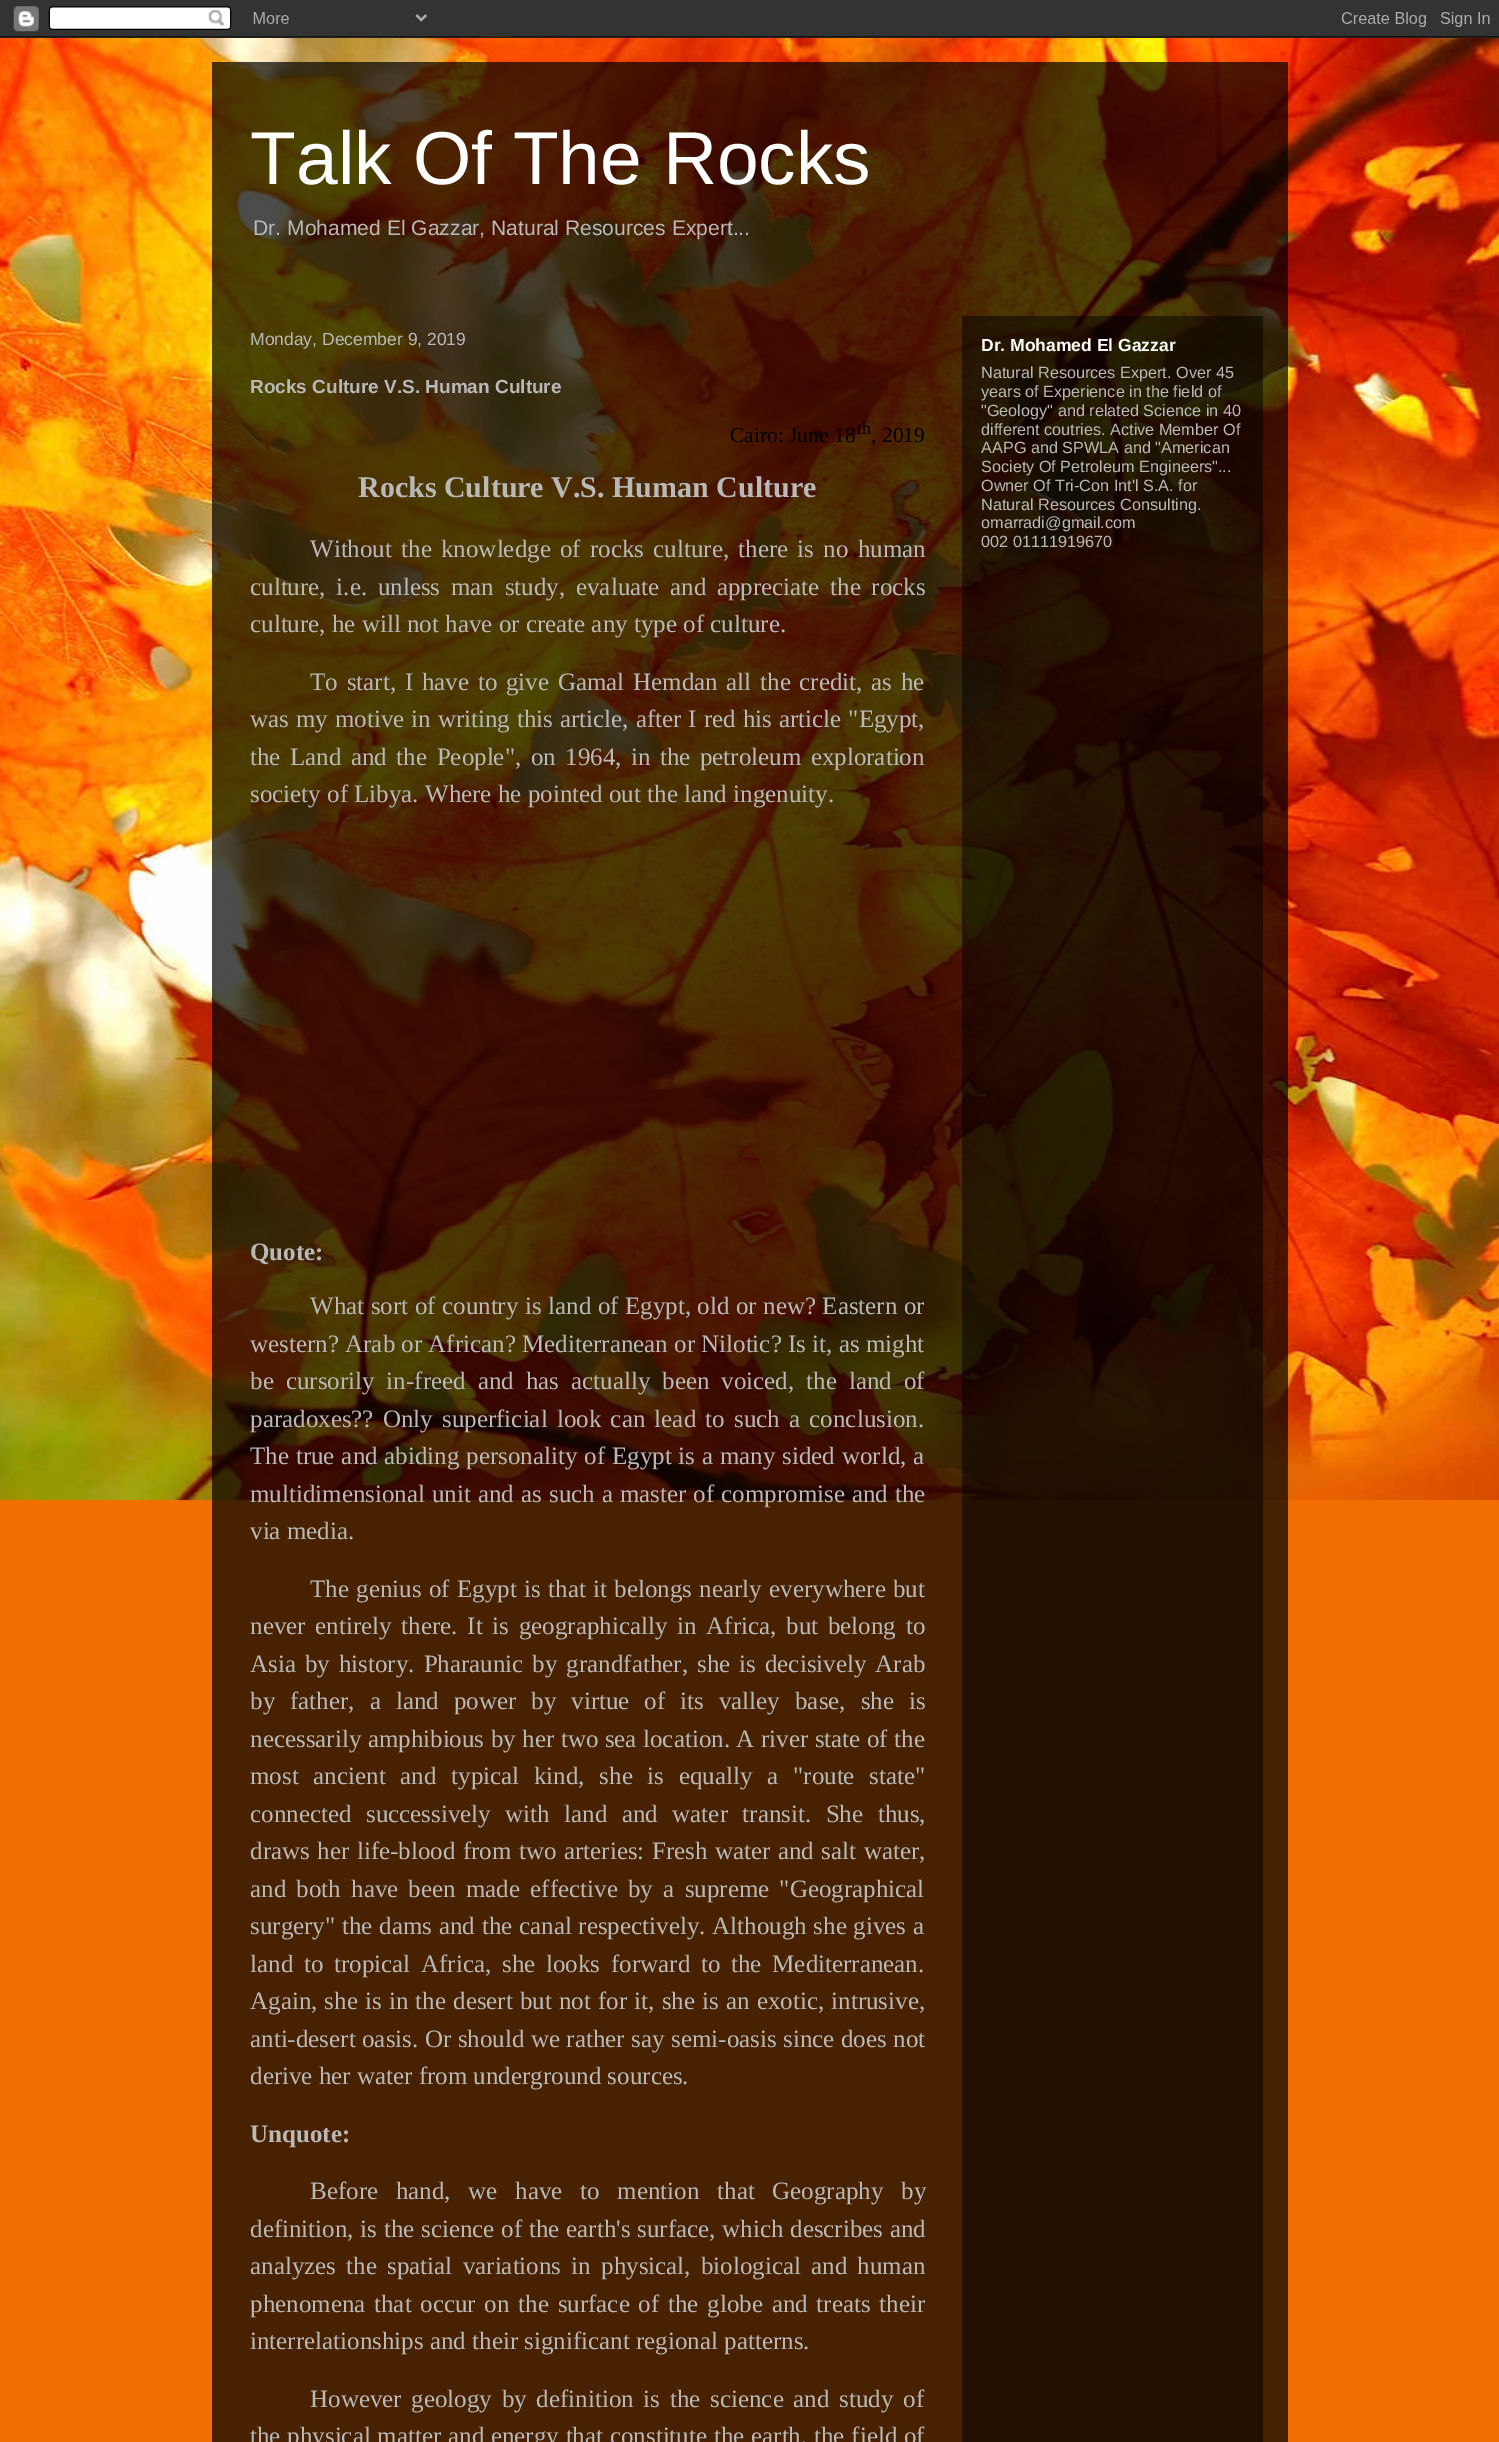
%!PS
<< /PageSize [1499 2442] /PageUsesTransparency true >> setpagedevice
/alpha { dup .setfillconstantalpha .setstrokeconstantalpha } def
/picture { 5 dict begin { /h /w /y /x /name } { exch def } forall
  gsave x y translate w h scale
  w h 8 [w 0 0 h 0 0] name (r) file false 3 colorimage grestore end } def
0 .pushpdf14devicefilter
0 2442 translate 1 -1 scale
4 setmiterlimit
0.953 0.431 0 setrgbcolor
0 0 1499 2442 rectfill
(img2.rgb) 0 36 1499 1465 picture
(img1.rgb) 0 0 1499 38 picture
0.7 alpha
0 setgray
212 62 1076 2380 rectfill
/LiberationSans-Regular [75 0 0 -75 0 0] selectfont
1 alpha
1 setgray
250 184 moveto (Talk Of The Rocks) show
/LiberationSans-Regular [21.1 0 0 -21.1 0 0] selectfont
0.725 setgray
253 235 moveto (Dr. Mohamed El Gazzar, Natural Resources Expert...) show
0.5 alpha
0 setgray
962 316 301 2126 rectfill
/LiberationSans-Regular [17.5 0 0 -17.5 0 0] selectfont
1 alpha
0.725 setgray
250 345 moveto (Monday, December 9, 2019) show
/LiberationSans-Bold [19 0 0 -19 0 0] selectfont
250 393 moveto (Rocks Culture V.S. Human Culture) show
/LiberationSerif-Regular [21.5 0 0 -21.5 0 0] selectfont
0 setgray
730 442 moveto (Cairo: June 18) show
/LiberationSerif-Regular [18 0 0 -18 0 0] selectfont
857 434 moveto (th) show
/LiberationSerif-Regular [21.5 0 0 -21.5 0 0] selectfont
871 442 moveto (, 2019) show
/LiberationSerif-Bold [30 0 0 -30 0 0] selectfont
0.725 setgray
358 497 moveto (Rocks Culture V.S. Human Culture) show
/LiberationSerif-Regular [25 0 0 -25 0 0] selectfont
310 557 moveto 3 0 32 (Without the knowledge of rocks culture, there is no human) widthshow
250 595 moveto 4.5 0 32 (culture, i.e. unless man study, evaluate and appreciate the rocks) widthshow
250 632 moveto (culture, he will not have or create any type of culture.) show
310 690 moveto 2.5 0 32 (To start, I have to give Gamal Hemdan all the credit, as he) widthshow
250 727 moveto 0.75 0 32 (was my motive in writing this article, after I red his article "Egypt,) widthshow
250 765 moveto 3.25 0 32 (the Land and the People", on 1964, in the petroleum exploration) widthshow
250 802 moveto (society of Libya. Where he pointed out the land ingenuity.) show
/LiberationSerif-Bold [25 0 0 -25 0 0] selectfont
250 1260 moveto (Quote:) show
/LiberationSerif-Regular [25 0 0 -25 0 0] selectfont
310 1314 moveto 0.25 0 32 (What sort of country is land of Egypt, old or new? Eastern or) widthshow
250 1352 moveto (western? Arab or African? Mediterranean or Nilotic? Is it, as might) show
250 1389 moveto 5.75 0 32 (be cursorily in-freed and has actually been voiced, the land of) widthshow
250 1427 moveto 3 0 32 (paradoxes?? Only superficial look can lead to such a conclusion.) widthshow
250 1464 moveto 0.6 0 32 (The true and abiding personality of Egypt is a many sided world, a) widthshow
250 1502 moveto 0.75 0 32 (multidimensional unit and as such a master of compromise and the) widthshow
250 1539 moveto (via media.) show
310 1597 moveto 1.1 0 32 (The genius of Egypt is that it belongs nearly everywhere but) widthshow
250 1634 moveto 3.5 0 32 (never entirely there. It is geographically in Africa, but belong to) widthshow
250 1672 moveto 2.75 0 32 (Asia by history. Pharaunic by grandfather, she is decisively Arab) widthshow
250 1709 moveto 8.75 0 32 (by father, a land power by virtue of its valley base, she is) widthshow
250 1747 moveto 0.25 0 32 (necessarily amphibious by her two sea location. A river state of the) widthshow
250 1784 moveto 8.5 0 32 (most ancient and typical kind, she is equally a "route state") widthshow
250 1822 moveto 8.25 0 32 (connected successively with land and water transit. She thus,) widthshow
250 1859 moveto 1.25 0 32 (draws her life-blood from two arteries: Fresh water and salt water,) widthshow
250 1897 moveto 4 0 32 (and both have been made effective by a supreme "Geographical) widthshow
250 1934 moveto 0.5 0 32 (surgery" the dams and the canal respectively. Although she gives a) widthshow
250 1972 moveto 4.5 0 32 (land to tropical Africa, she looks forward to the Mediterranean.) widthshow
250 2009 moveto 0.9 0 32 (Again, she is in the desert but not for it, she is an exotic, intrusive,) widthshow
250 2047 moveto 0.25 0 32 (anti-desert oasis. Or should we rather say semi-oasis since does not) widthshow
250 2084 moveto (derive her water from underground sources.) show
/LiberationSerif-Bold [25 0 0 -25 0 0] selectfont
250 2142 moveto (Unquote:) show
/LiberationSerif-Regular [25 0 0 -25 0 0] selectfont
310 2199 moveto 11.5 0 32 (Before hand, we have to mention that Geography by) widthshow
250 2237 moveto 0.5 0 32 (definition, is the science of the earth's surface, which describes and) widthshow
250 2274 moveto 4 0 32 (analyzes the spatial variations in physical, biological and human) widthshow
250 2312 moveto 2.5 0 32 (phenomena that occur on the surface of the globe and treats their) widthshow
250 2349 moveto (interrelationships and their significant regional patterns.) show
310 2407 moveto 3.5 0 32 (However geology by definition is the science and study of) widthshow
250 2444 moveto 0.5 0 32 (the physical matter and energy that constitute the earth, the field of) widthshow
/LiberationSans-Bold [17.5 0 0 -17.5 0 0] selectfont
1 setgray
981 351 moveto (Dr. Mohamed El Gazzar) show
/LiberationSans-Regular [16.25 0 0 -16.25 0 0] selectfont
0.725 setgray
981 378 moveto (Natural Resources Expert. Over 45) show
981 397 moveto (years of Experience in the field of) show
981 416 moveto ("Geology" and related Science in 40) show
981 435 moveto (different coutries. Active Member Of) show
981 453 moveto (AAPG and SPWLA and "American) show
981 472 moveto (Society Of Petroleum Engineers"...) show
981 491 moveto (Owner Of Tri-Con Int'l S.A. for) show
981 510 moveto (Natural Resources Consulting.) show
981 528 moveto (omarradi@gmail.com) show
981 547 moveto (002 01111919670) show
.poppdf14devicefilter showpage
